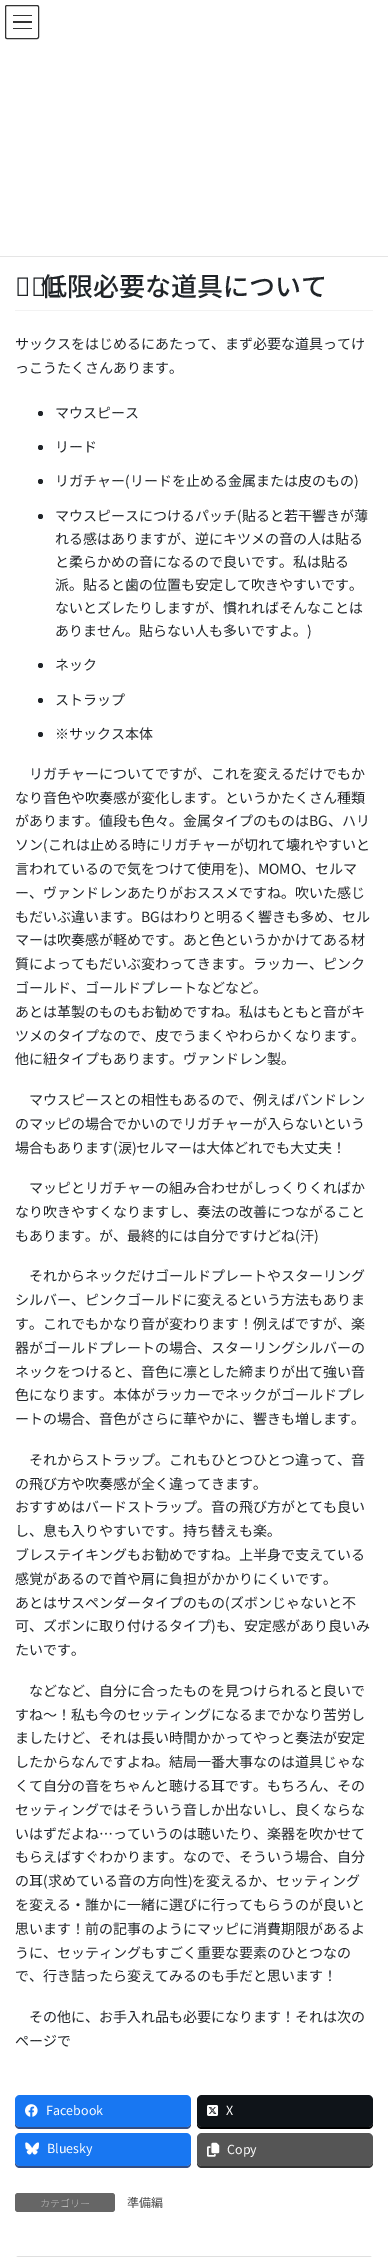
%!PS
<< /PageSize [388 2257] >> setpagedevice
/roundrect { 5 dict begin { /r /h /w /y /x } { exch def } forall
  x r add y moveto x w add y 2 copy h add r arct x w add y h add x 1 index r arct
  x y h add x y r arct x y 2 copy exch w add exch r arct closepath end } def
/picture { 5 dict begin { /h /w /y /x /name } { exch def } forall
  gsave x y translate w h scale
  w h 8 [w 0 0 h 0 0] name (r) file false 3 colorimage grestore end } def
0 2257 translate 1 -1 scale
4 setmiterlimit
1 setgray
0 0 388 2257 rectfill
0.2 setgray
13 15 19 1 rectfill
13 21 19 2 rectfill
13 28 19 1 rectfill
5.5 5.5 33 33 1.5 roundrect stroke
0.898 setgray
0 256 388 1 rectfill
0.949 setgray
15 310 358 1 rectfill
/NotoSans-Medium [26 0 0 -26 0 0] selectfont
0.129 0.145 0.161 setrgbcolor
15 296 moveto (最) show
/NotoSansJP-Medium [26 0 0 -26 0 0] selectfont
41 296 moveto (低限必要な道具について) show
/NotoSansJP-Regular [14 0 0 -14 0 0] selectfont
15 349 moveto (サックスをはじめるにあたって、まず必要な道具ってけ) show
15 373 moveto (っこうたくさんあります。) show
newpath 40.5 413.5 2.5 0 360 arc closepath fill
55 418 moveto (マウスピース) show
newpath 40.5 447.5 2.5 0 360 arc closepath fill
55 452 moveto (リード) show
newpath 40.5 481.5 2.5 0 360 arc closepath fill
55 486 moveto (リガチャー\(リードを止める金属または皮のもの\)) show
newpath 40.5 516.5 2.5 0 360 arc closepath fill
55 521 moveto (マウスピースにつけるパッチ\(貼ると若干響きが薄) show
55 544 moveto (れる感はありますが、逆にキツメの音の人は貼る) show
55 567 moveto (と柔らかめの音になるので良いです。私は貼る) show
55 590 moveto (派。貼ると歯の位置も安定して吹きやすいです。) show
55 613 moveto (ないとズレたりしますが、慣れればそんなことは) show
55 636 moveto (ありません。貼らない人も多いですよ。\)) show
newpath 40.5 665.5 2.5 0 360 arc closepath fill
55 670 moveto (ネック) show
newpath 40.5 700.5 2.5 0 360 arc closepath fill
55 705 moveto (ストラップ) show
newpath 40.5 734.5 2.5 0 360 arc closepath fill
55 739 moveto (※サックス本体) show
29 779 moveto (リガチャーについてですが、これを変えるだけでもか) show
15 803 moveto (なり音色や吹奏感が変化します。というかたくさん種類) show
15 826 moveto (があります。値段も色々。金属タイプのものはBG、ハリ) show
15 850 moveto (ソン\(これは止める時にリガチャーが切れて壊れやすいと) show
15 874 moveto (言われているので気をつけて使用を\)、MOMO、セルマ) show
15 898 moveto (ー、ヴァンドレンあたりがおススメですね。吹いた感じ) show
15 922 moveto (もだいぶ違います。BGはわりと明るく響きも多め、セル) show
15 945 moveto (マーは吹奏感が軽めです。あと色というかかけてある材) show
15 969 moveto (質によってもだいぶ変わってきます。ラッカー、ピンク) show
15 993 moveto (ゴールド、ゴールドプレートなどなど。) show
15 1017 moveto (あとは革製のものもお勧めですね。私はもともと音がキ) show
15 1041 moveto (ツメのタイプなので、皮でうまくやわらかくなります。) show
15 1064 moveto (他に紐タイプもあります。ヴァンドレン製。) show
29 1105 moveto (マウスピースとの相性もあるので、例えばバンドレン) show
15 1129 moveto (のマッピの場合でかいのでリガチャーが入らないという) show
15 1153 moveto (場合もあります\(涙\)セルマーは大体どれでも大丈夫！) show
29 1193 moveto (マッピとリガチャーの組み合わせがしっくりくればか) show
15 1217 moveto (なり吹きやすくなりますし、奏法の改善につながること) show
15 1241 moveto (もあります。が、最終的には自分ですけどね\(汗\)) show
29 1281 moveto (それからネックだけゴールドプレートやスターリング) show
15 1305 moveto (シルバー、ピンクゴールドに変えるという方法もありま) show
15 1329 moveto (す。これでもかなり音が変わります！例えばですが、楽) show
15 1353 moveto (器がゴールドプレートの場合、スターリングシルバーの) show
15 1377 moveto (ネックをつけると、音色に凛とした締まりが出て強い音) show
15 1400 moveto (色になります。本体がラッカーでネックがゴールドプレ) show
15 1424 moveto (ートの場合、音色がさらに華やかに、響きも増します。) show
29 1465 moveto (それからストラップ。これもひとつひとつ違って、音) show
15 1489 moveto (の飛び方や吹奏感が全く違ってきます。) show
15 1512 moveto (おすすめはバードストラップ。音の飛び方がとても良い) show
15 1536 moveto (し、息も入りやすいです。持ち替えも楽。) show
15 1560 moveto (ブレステイキングもお勧めですね。上半身で支えている) show
15 1584 moveto (感覚があるので首や肩に負担がかかりにくいです。) show
15 1608 moveto (あとはサスペンダータイプのもの\(ズボンじゃないと不) show
15 1631 moveto (可、ズボンに取り付けるタイプ\)も、安定感があり良いみ) show
15 1655 moveto (たいです。) show
29 1696 moveto (などなど、自分に合ったものを見つけられると良いで) show
15 1720 moveto (すね～！私も今のセッティングになるまでかなり苦労し) show
15 1743 moveto (ましたけど、それは長い時間かかってやっと奏法が安定) show
15 1767 moveto (したからなんですよね。結局一番大事なのは道具じゃな) show
15 1791 moveto (くて自分の音をちゃんと聴ける耳です。もちろん、その) show
15 1815 moveto (セッティングではそういう音しか出ないし、良くならな) show
15 1839 moveto (いはずだよね…っていうのは聴いたり、楽器を吹かせて) show
15 1862 moveto (もらえばすぐわかります。なので、そういう場合、自分) show
15 1886 moveto (の耳\(求めている音の方向性\)を変えるか、セッティング) show
15 1910 moveto (を変える・誰かに一緒に選びに行ってもらうのが良いと) show
15 1934 moveto (思います！前の記事のようにマッピに消費期限があるよ) show
15 1958 moveto (うに、セッティングもすごく重要な要素のひとつなの) show
15 1981 moveto (で、行き詰ったら変えてみるのも手だと思います！) show
29 2022 moveto (その他に、お手入れ品も必要になります！それは次の) show
15 2046 moveto (ページで) show
0.204 0.306 0.518 setrgbcolor
newpath 15 2122 moveto 15 2124 lineto 15 2127 17 2129 20 2129 curveto 186 2129 lineto 189 2129 191 2127 191 2124 curveto 191 2122 lineto 191 2125 189 2127 186 2127 curveto 20 2127 lineto 17 2127 15 2125 15 2122 curveto closepath fill
0.094 0.467 0.949 setrgbcolor
15 2095 176 32 5 roundrect fill
(img1.rgb) 25 2104 13 13 picture
/NotoSansJP-Regular [12.5 0 0 -12.5 0 0] selectfont
1 setgray
46 2115 moveto (Facebook) show
0 setgray
newpath 197 2122 moveto 197 2124 lineto 197 2127 199 2129 202 2129 curveto 368 2129 lineto 371 2129 373 2127 373 2124 curveto 373 2122 lineto 373 2125 371 2127 368 2127 curveto 202 2127 lineto 199 2127 197 2125 197 2122 curveto closepath fill
0.059 0.078 0.098 setrgbcolor
197 2095 176 32 5 roundrect fill
(img2.rgb) 207 2105 12 11 picture
1 setgray
226 2115 moveto (X) show
0.204 0.306 0.518 setrgbcolor
newpath 15 2161 moveto 15 2163 lineto 15 2166 17 2168 20 2168 curveto 186 2168 lineto 189 2168 191 2166 191 2163 curveto 191 2161 lineto 191 2164 189 2166 186 2166 curveto 20 2166 lineto 17 2166 15 2164 15 2161 curveto closepath fill
0.094 0.467 0.949 setrgbcolor
15 2133 176 33 5 roundrect fill
(img3.rgb) 25 2142 14 13 picture
1 setgray
47 2153 moveto (Bluesky) show
0.2 setgray
newpath 197 2161 moveto 197 2163 lineto 197 2166 199 2168 202 2168 curveto 368 2168 lineto 371 2168 373 2166 373 2163 curveto 373 2161 lineto 373 2164 371 2166 368 2166 curveto 202 2166 lineto 199 2166 197 2164 197 2161 curveto closepath fill
0.333 setgray
197 2133 176 33 5 roundrect fill
(img4.rgb) 207 2142 13 15 picture
1 setgray
227 2154 moveto (Copy) show
0.4 setgray
15 2193 100 19 3 roundrect fill
/NotoSansJP-Thin [10 0 0 -10 0 0] selectfont
1 setgray
40 2207 moveto (カテゴリー) show
/NotoSansJP-Regular [12 0 0 -12 0 0] selectfont
0.275 setgray
127 2207 moveto (準備編) show
0.875 setgray
15.5 2256.5 357 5 3.5 roundrect stroke
showpage
